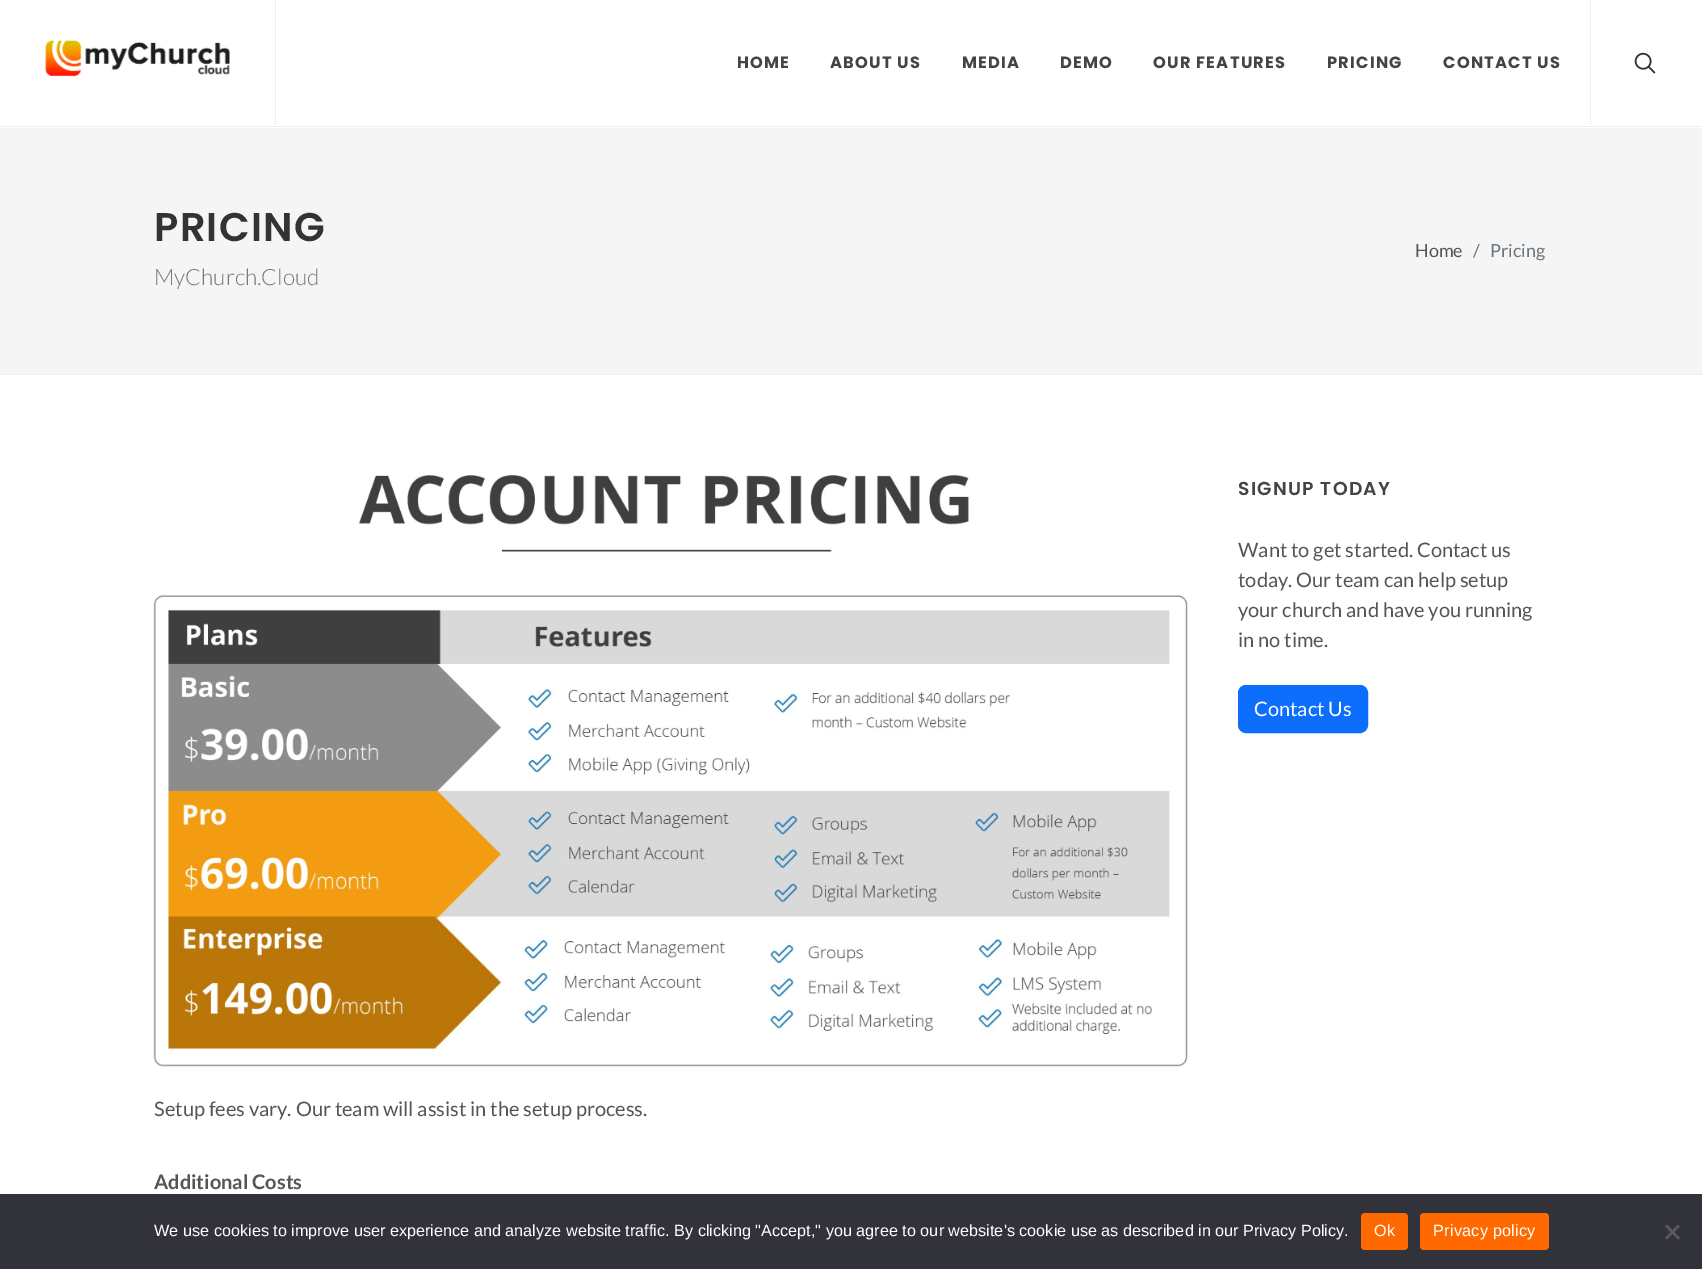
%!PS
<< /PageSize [1702 1269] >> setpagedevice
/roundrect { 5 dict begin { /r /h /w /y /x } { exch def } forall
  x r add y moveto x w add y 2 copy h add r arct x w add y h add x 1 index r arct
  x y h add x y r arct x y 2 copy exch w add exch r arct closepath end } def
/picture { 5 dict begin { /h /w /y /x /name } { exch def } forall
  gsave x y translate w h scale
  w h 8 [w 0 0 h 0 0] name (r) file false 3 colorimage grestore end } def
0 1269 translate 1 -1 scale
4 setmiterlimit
1 setgray
0 0 1702 1269 rectfill
0.933 setgray
0 126 1702 1 rectfill
275 0 1 125 rectfill
(img1.rgb) 45 40 185 37 picture
1590 0 1 125 rectfill
/Poppins-Bold [16.25 0 0 -16.25 0 0] selectfont
0.267 setgray
737 68 moveto 1.25 0 (HOME) ashow
830 68 moveto 1.25 0 (ABOUT US) ashow
962 68 moveto 1.25 0 (MEDIA) ashow
1060 68 moveto 1.25 0 (DEMO) ashow
1153 68 moveto 1.25 0 (OUR FEATURES) ashow
1327 68 moveto 1.25 0 (PRICING) ashow
1443 68 moveto 1.25 0 (CONTACT US) ashow
(img2.rgb) 1634 52 22 22 picture
0.961 setgray
0 128 1702 246 rectfill
0.933 setgray
0 374 1702 1 rectfill
/Poppins-SemiBold [40 0 0 -40 0 0] selectfont
0.2 setgray
154 241 moveto 1.25 0 (PRICING) ashow
/Lato-Regular [18 0 0 -18 0 0] selectfont
0.333 setgray
1415 257 moveto (Home) show
0.424 0.459 0.49 setrgbcolor
1473 257 moveto (/) show
1490 257 moveto (Pricing) show
/Lato-Light [22.5 0 0 -22.5 0 0] selectfont
0.467 setgray
154 285 moveto (MyChurch.Cloud) show
/Poppins-SemiBold [18.75 0 0 -18.75 0 0] selectfont
0.267 setgray
1238 495 moveto 1.25 0 (SIGNUP TODAY) ashow
/Lato-Regular [20 0 0 -20 0 0] selectfont
0.333 setgray
1238 557 moveto (Want to get started. Contact us) show
1238 587 moveto (today. Our team can help setup) show
1238 617 moveto (your church and have you running) show
1238 647 moveto (in no time.) show
0.051 0.431 0.992 setrgbcolor
1238.5 685.5 129 47 7.5 roundrect gsave fill grestore
stroke
1 setgray
1254 716 moveto (Contact Us) show
(img3.rgb) 153 475 1035 592 picture
0.333 setgray
154 1116 moveto (Setup fees vary. Our team will assist in the setup process.) show
/Lato-Bold [20 0 0 -20 0 0] selectfont
154 1189 moveto (Additional Costs) show
0.196 0.196 0.227 setrgbcolor
0 1194 1702 75 rectfill
/LiberationSans-Regular [16.25 0 0 -16.25 0 0] selectfont
1 setgray
154 1236 moveto (We use cookies to improve user experience and analyze website traffic. By clicking "Accept," you agree to our website's cookie use as described in our Privacy Policy.) show
1 0.412 0 setrgbcolor
1361 1213 47 37 4 roundrect fill
1 setgray
1374 1236 moveto 0.25 0 (Ok) ashow
1 0.412 0 setrgbcolor
1420 1213 129 37 4 roundrect fill
1 setgray
1433 1236 moveto 0.25 0 (Privacy policy) ashow
0.349 0.349 0.365 setrgbcolor
newpath 1678 1224.5 moveto 1680 1226.5 lineto 1667 1239.5 lineto 1665 1238 lineto closepath fill
newpath 1665 1226.5 moveto 1667 1224.5 lineto 1680 1238 lineto 1678 1239.5 lineto closepath fill
showpage
